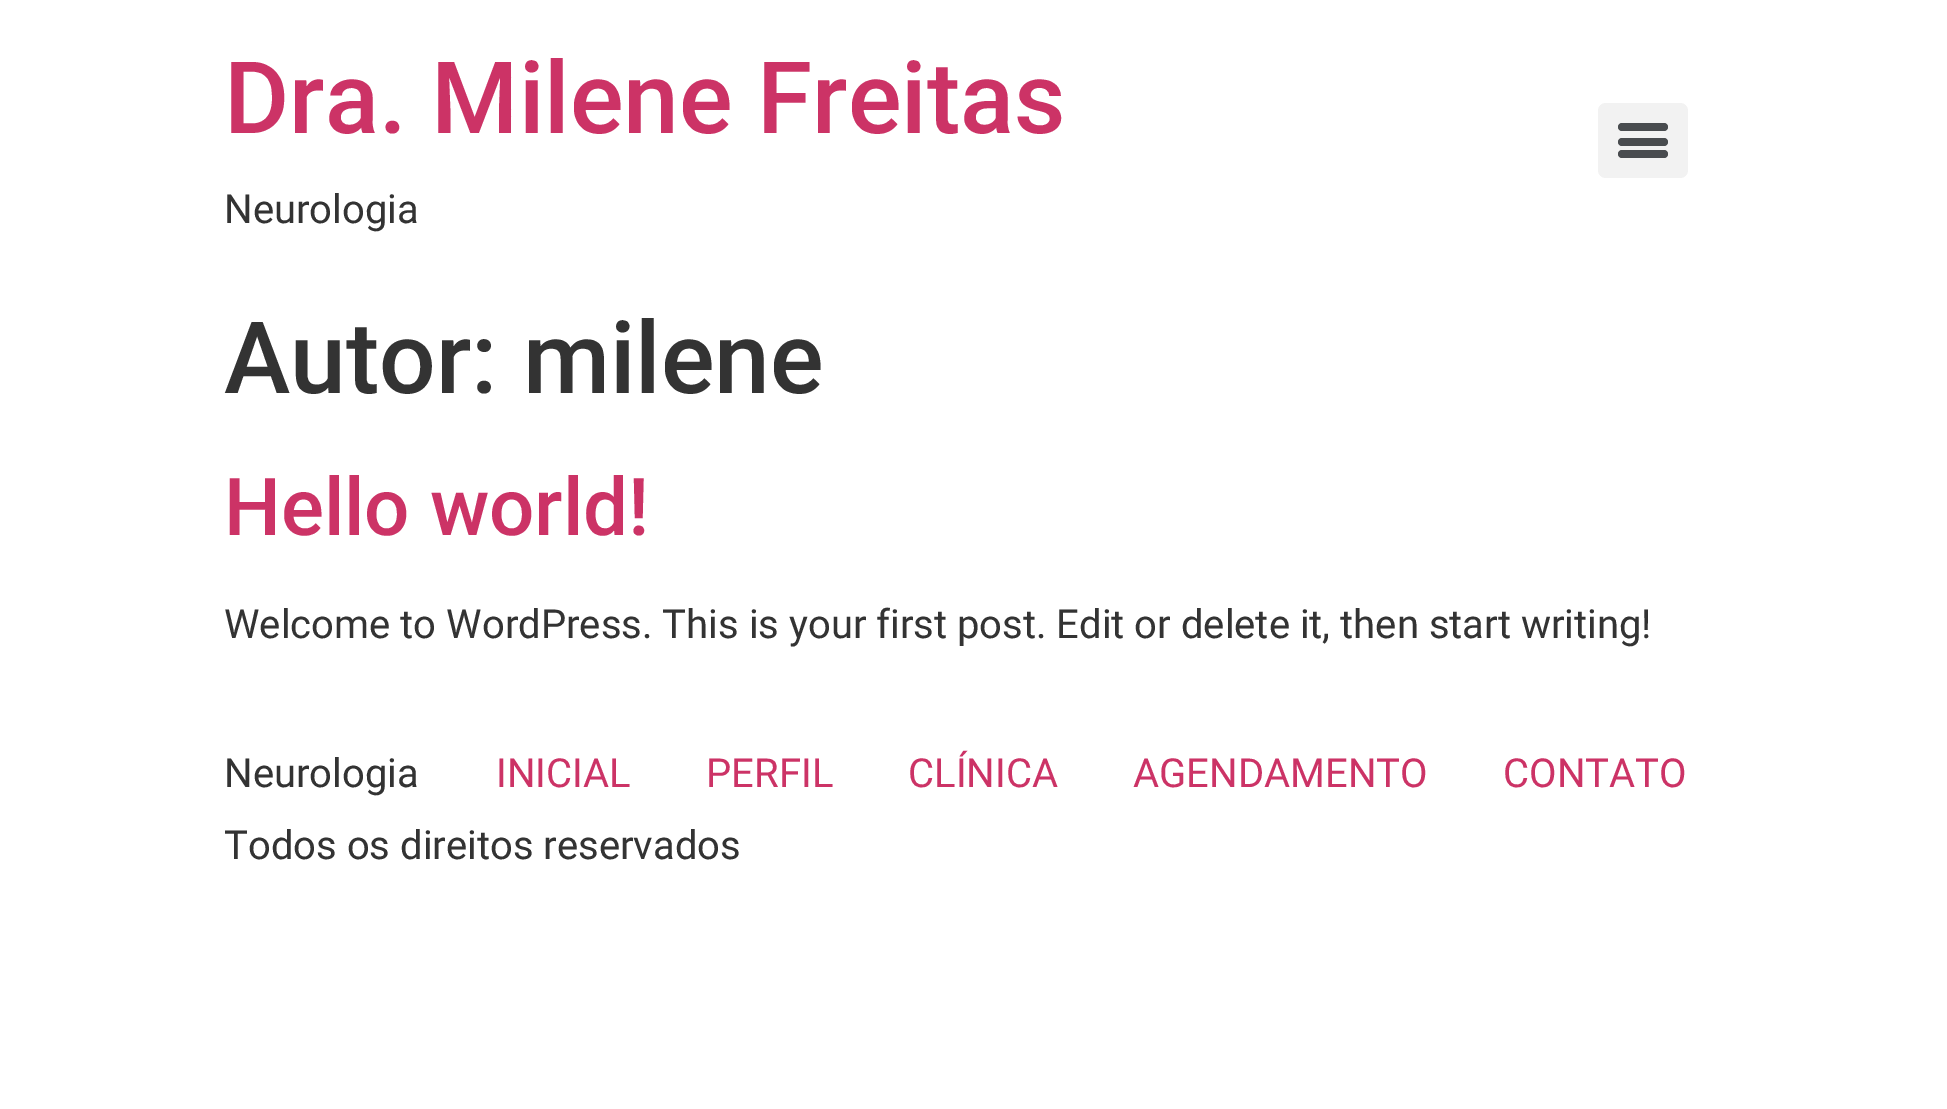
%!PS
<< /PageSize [1947 1109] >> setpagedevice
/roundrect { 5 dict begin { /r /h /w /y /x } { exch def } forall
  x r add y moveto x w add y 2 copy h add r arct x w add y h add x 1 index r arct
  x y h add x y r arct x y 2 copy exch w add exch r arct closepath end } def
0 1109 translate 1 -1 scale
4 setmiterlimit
1 setgray
0 0 1947 1109 rectfill
/Roboto-Medium [100 0 0 -100 0 0] selectfont
0.8 0.2 0.4 setrgbcolor
224 133 moveto (Dra. Milene Freitas) show
/Roboto-Regular [40 0 0 -40 0 0] selectfont
0.2 setgray
224 223 moveto (Neurologia) show
0.949 setgray
1598 103 90 75 8 roundrect fill
0.286 0.298 0.31 setrgbcolor
1618 138 50 8 4 roundrect fill
1618 123 50 8 4 roundrect fill
1618 150 50 8 4 roundrect fill
/Roboto-Medium [100 0 0 -100 0 0] selectfont
0.2 setgray
224 393 moveto (Autor: milene) show
/Roboto-Medium [80 0 0 -80 0 0] selectfont
0.8 0.2 0.4 setrgbcolor
224 535 moveto (Hello world!) show
/Roboto-Regular [40 0 0 -40 0 0] selectfont
0.2 setgray
224 638 moveto (Welcome to WordPress. This is your first post. Edit or delete it, then start writing!) show
224 787 moveto (Neurologia) show
0.8 0.2 0.4 setrgbcolor
496 787 moveto (INICIAL) show
706 787 moveto (PERFIL) show
908 787 moveto (CLÍNICA) show
1133 787 moveto (AGENDAMENTO) show
1503 787 moveto (CONTATO) show
0.2 setgray
224 859 moveto (Todos os direitos reservados) show
showpage
